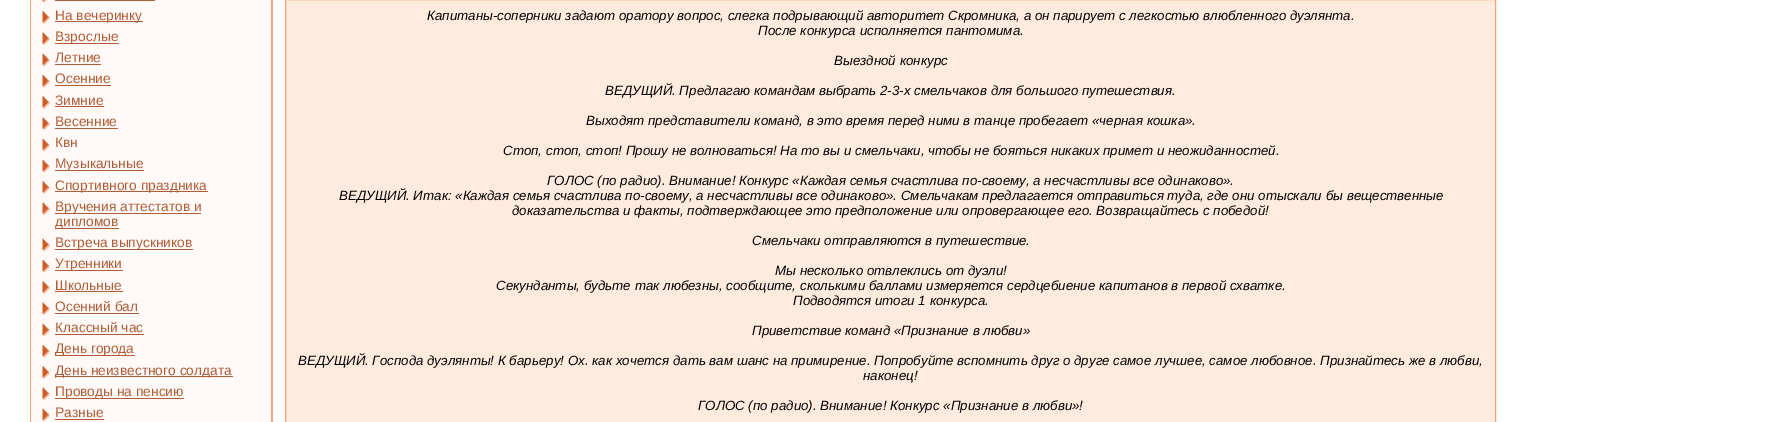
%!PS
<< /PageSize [1781 422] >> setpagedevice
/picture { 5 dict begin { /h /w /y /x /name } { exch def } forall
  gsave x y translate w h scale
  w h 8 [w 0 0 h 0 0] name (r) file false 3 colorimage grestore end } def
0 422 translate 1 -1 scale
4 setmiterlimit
1 setgray
0 0 1781 422 rectfill
0.965 0.639 0.482 setrgbcolor
30 0 243 422 rectfill
1 0.98 0.973 setrgbcolor
31 0 240 422 rectfill
(img1.rgb) 42 0 6 3 picture
0.686 0.369 0.22 setrgbcolor
55 0 100 1 rectfill
(img2.rgb) 42 11 9 13 picture
55 21 88 1 rectfill
/LiberationSans-Regular [13.75 0 0 -13.75 0 0] selectfont
55 20 moveto (На вечеринку) show
(img3.rgb) 42 32 9 14 picture
55 43 64 1 rectfill
55 41 moveto (Взрослые) show
(img4.rgb) 42 53 9 14 picture
55 62 moveto (Летние) show
55 64 46 1 rectfill
(img5.rgb) 42 75 9 13 picture
55 83 moveto (Осенние) show
55 85 56 1 rectfill
(img2.rgb) 42 96 9 13 picture
55 105 moveto (Зимние) show
55 106 49 1 rectfill
(img3.rgb) 42 117 9 14 picture
55 126 moveto (Весенние) show
55 128 63 1 rectfill
(img4.rgb) 42 138 9 14 picture
55 147 moveto (Квн) show
(img5.rgb) 42 160 9 13 picture
55 170 89 1 rectfill
55 168 moveto (Музыкальные) show
(img2.rgb) 42 181 9 13 picture
55 191 153 1 rectfill
55 190 moveto (Спортивного праздника) show
(img3.rgb) 42 202 9 14 picture
55 213 146 1 rectfill
55 211 moveto (Вручения аттестатов и) show
55 228 64 1 rectfill
55 226 moveto (дипломов) show
(img4.rgb) 42 238 9 14 picture
55 249 138 1 rectfill
55 247 moveto (Встреча выпускников) show
(img5.rgb) 42 260 9 13 picture
55 270 68 1 rectfill
55 268 moveto (Утренники) show
(img2.rgb) 42 281 9 13 picture
55 290 moveto (Школьные) show
55 291 68 1 rectfill
(img3.rgb) 42 302 9 14 picture
55 311 moveto (Осенний бал) show
55 313 84 1 rectfill
(img4.rgb) 42 323 9 14 picture
55 332 moveto (Классный час) show
55 334 89 1 rectfill
(img5.rgb) 42 345 9 13 picture
55 355 80 1 rectfill
55 353 moveto (День города) show
(img2.rgb) 42 366 9 13 picture
55 376 178 1 rectfill
55 375 moveto (День неизвестного солдата) show
(img3.rgb) 42 387 9 14 picture
55 398 129 1 rectfill
55 396 moveto (Проводы на пенсию) show
(img4.rgb) 42 408 9 14 picture
55 417 moveto (Разные) show
55 419 49 1 rectfill
1 0.922 0.867 setrgbcolor
newpath 285.5 -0.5 moveto 1495.5 -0.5 lineto 1495.5 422.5 lineto 285.5 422.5 lineto closepath gsave fill grestore
0.965 0.639 0.482 setrgbcolor
stroke
/LiberationSans-Italic [13.33 0 0 -13.33 0 0] selectfont
0 setgray
427 20 moveto (Капитаны-соперники задают оратору вопрос, слегка подрывающий авторитет Скромника, а он парирует с легкостью влюбленного дуэлянта.) show
758 35 moveto (После конкурса исполняется пантомима.) show
834 65 moveto (Выездной конкурс) show
605 95 moveto (ВЕДУЩИЙ. Предлагаю командам выбрать 2-3-х смельчаков для большого путешествия.) show
586 125 moveto (Выходят представители команд, в это время перед ними в танце пробегает «черная кошка».) show
503 155 moveto (Стоп, стоп, стоп! Прошу не волноваться! На то вы и смельчаки, чтобы не бояться никаких примет и неожиданностей.) show
547 185 moveto (ГОЛОС \(по радио\). Внимание! Конкурс «Каждая семья счастлива по-своему, а несчастливы все одинаково».) show
339 200 moveto (ВЕДУЩИЙ. Итак: «Каждая семья счастлива по-своему, а несчастливы все одинаково». Смельчакам предлагается отправиться туда, где они отыскали бы вещественные) show
512 215 moveto (доказательства и факты, подтверждающее это предположение или опровергающее его. Возвращайтесь с победой!) show
752 245 moveto (Смельчаки отправляются в путешествие.) show
775 275 moveto (Мы несколько отвлеклись от дуэли!) show
496 290 moveto (Секунданты, будьте так любезны, сообщите, сколькими баллами измеряется сердцебиение капитанов в первой схватке.) show
793 305 moveto (Подводятся итоги 1 конкурса.) show
752 335 moveto (Приветствие команд «Признание в любви») show
298 365 moveto (ВЕДУЩИЙ. Господа дуэлянты! К барьеру! Ох. как хочется дать вам шанс на примирение. Попробуйте вспомнить друг о друге самое лучшее, самое любовное. Признайтесь же в любви,) show
863 380 moveto (наконец!) show
698 410 moveto (ГОЛОС \(по радио\). Внимание! Конкурс «Признание в любви»!) show
showpage
